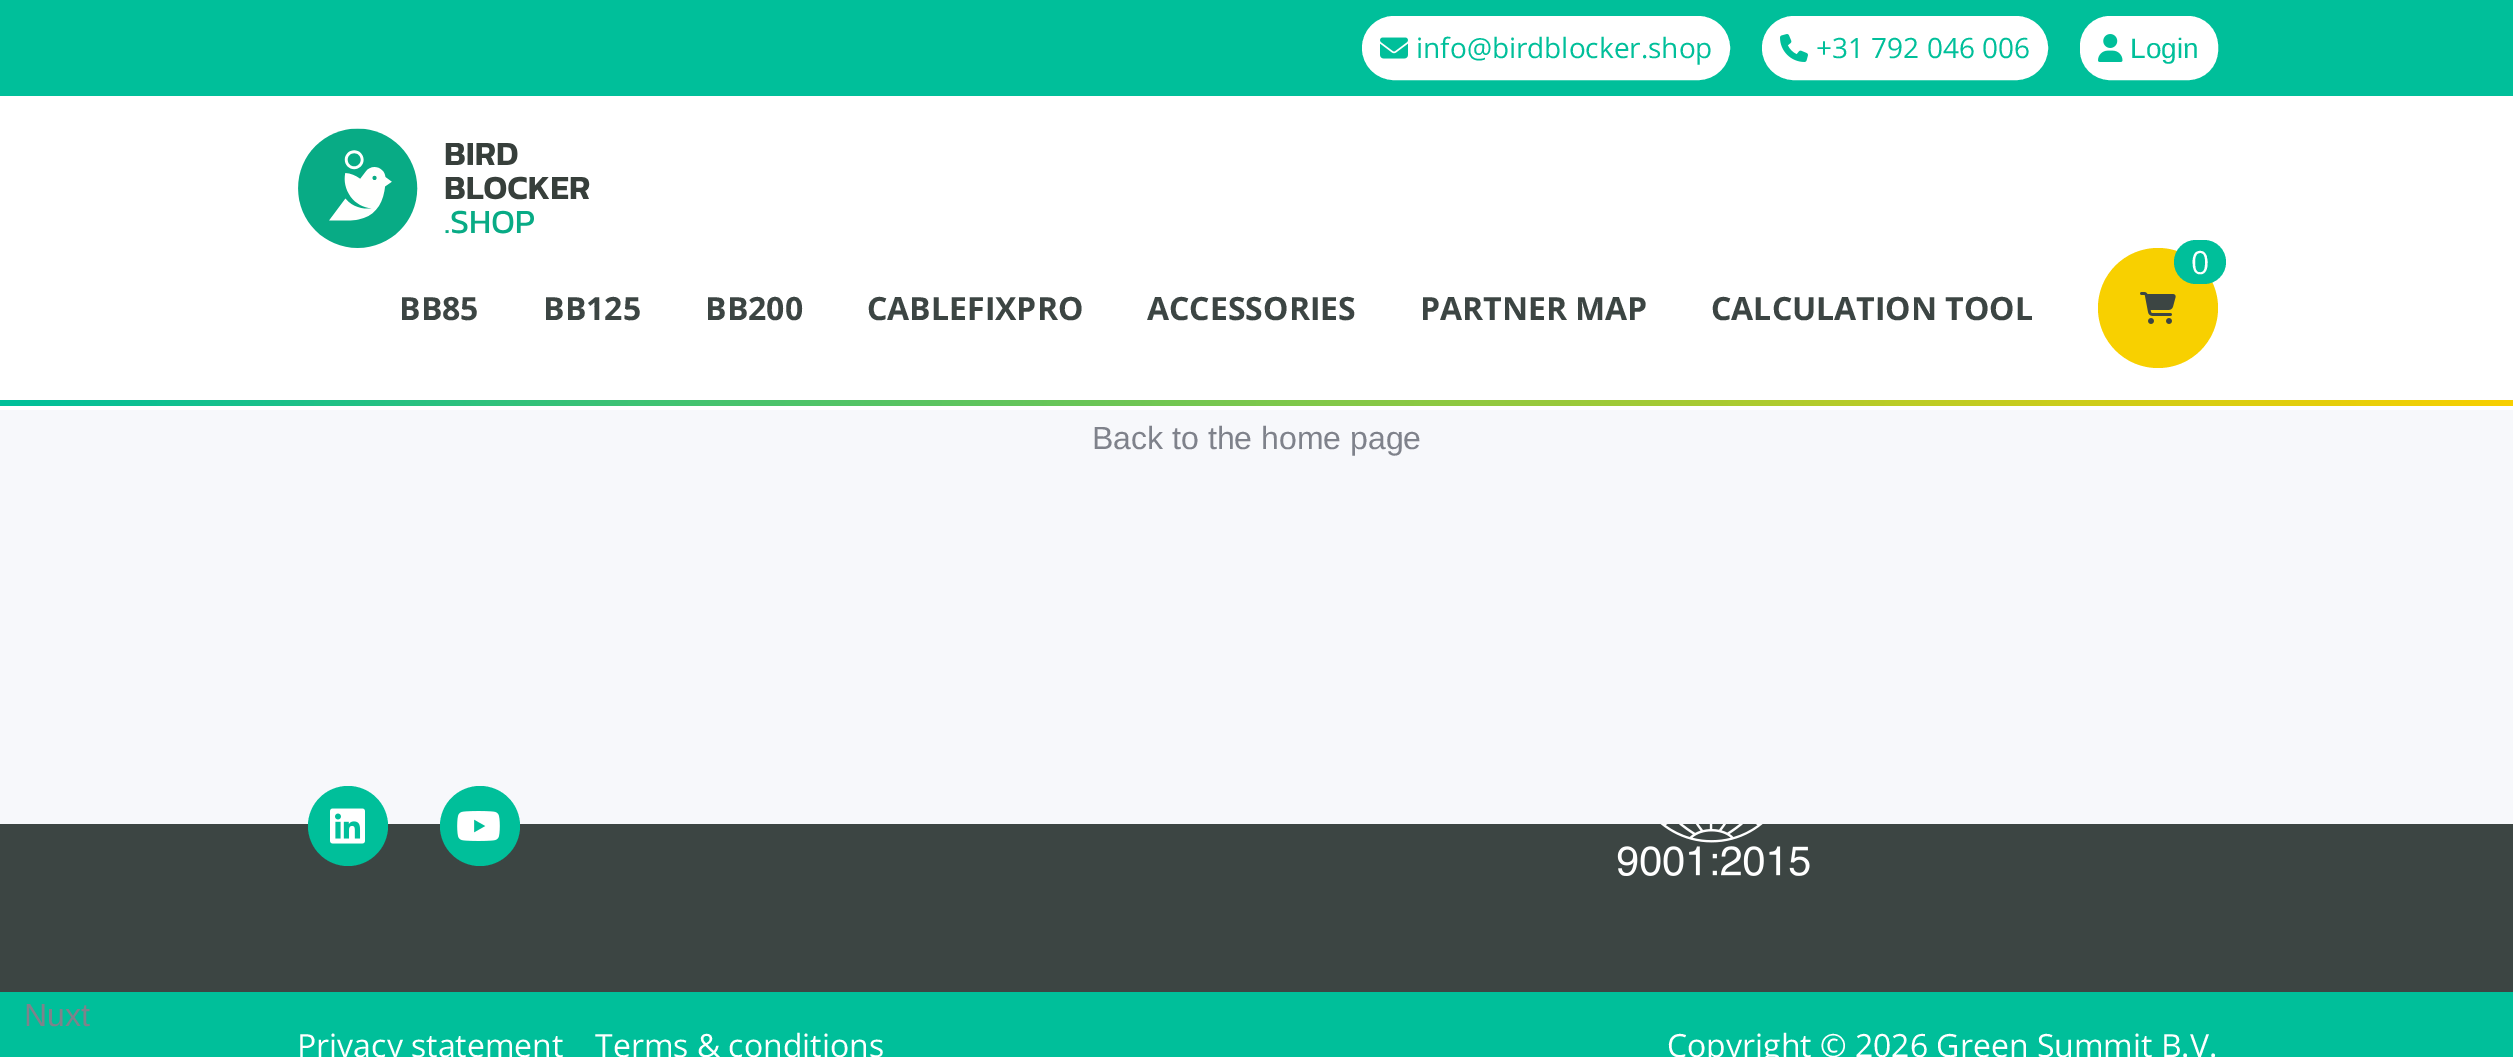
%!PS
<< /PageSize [2513 1057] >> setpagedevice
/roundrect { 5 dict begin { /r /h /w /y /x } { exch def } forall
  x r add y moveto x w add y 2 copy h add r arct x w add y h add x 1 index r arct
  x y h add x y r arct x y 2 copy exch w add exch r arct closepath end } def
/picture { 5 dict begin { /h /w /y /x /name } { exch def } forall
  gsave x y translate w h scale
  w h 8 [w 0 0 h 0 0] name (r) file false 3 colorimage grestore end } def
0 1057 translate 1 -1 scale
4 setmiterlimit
0.235 0.271 0.263 setrgbcolor
0 0 2513 1057 rectfill
0 0.749 0.604 setrgbcolor
0 0 2513 96 rectfill
1 setgray
1363 17 366 62 31 roundrect gsave fill grestore
2 setlinewidth
stroke
(img1.rgb) 1380 37 28 22 picture
/OpenSans-Regular [28 0 0 -28 0 0] selectfont
0 0.749 0.604 setrgbcolor
1416 58 moveto (info@birdblocker.shop) show
1 setgray
1763 17 284 62 31 roundrect gsave fill grestore
stroke
(img2.rgb) 1780 34 28 28 picture
0 0.749 0.604 setrgbcolor
1816 58 moveto (+31 792 046 006) show
1 setgray
2081 17 136 62 29 roundrect gsave fill grestore
stroke
(img3.rgb) 2098 34 25 28 picture
/LiberationSans-Regular [28 0 0 -28 0 0] selectfont
0 0.749 0.604 setrgbcolor
2130 58 moveto (Login) show
1 setgray
0 96 2513 304 rectfill
(img4.rgb) 298 128 292 120 picture
0.973 0.816 0 setrgbcolor
newpath 2158 308 60 0 360 arc closepath fill
0 0.749 0.604 setrgbcolor
2174 240 52 44 22 roundrect fill
/OpenSans-Regular [32 0 0 -32 0 0] selectfont
1 setgray
2191 274 moveto (0) show
(img5.rgb) 2140 292 36 32 picture
/OpenSans-Bold [32 0 0 -32 0 0] selectfont
0.235 0.271 0.263 setrgbcolor
399 320 moveto (BB85) show
543 320 moveto (BB125) show
705 320 moveto (BB200) show
867 320 moveto (CABLEFIXPRO) show
1147 320 moveto (ACCESSORIES) show
1420 320 moveto (PARTNER MAP) show
1711 320 moveto (CALCULATION TOOL) show
gsave newpath 0 400 moveto 2513 400 lineto 2513 406 lineto 0 406 lineto closepath clip newpath
<< /ShadingType 2 /ColorSpace /DeviceRGB /Coords [0 344 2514 344] /Extend [true true] /Function << /FunctionType 2 /Domain [0 1] /C0 [0 0.749 0.604] /C1 [0.973 0.816 0] /N 1 >> >> shfill grestore
1 setgray
0 406 2513 4 rectfill
0.969 0.973 0.984 setrgbcolor
0 410 2513 414 rectfill
/LiberationSans-Regular [32 0 0 -32 0 0] selectfont
0.498 0.51 0.545 setrgbcolor
1092 449 moveto (Back to the home page) show
0 0.749 0.604 setrgbcolor
0 992 2513 65 rectfill
0.498 0.51 0.545 setrgbcolor
24 1026 moveto (Nuxt) show
0 0.749 0.604 setrgbcolor
newpath 348 866 moveto 370 866 388 848 388 826 curveto 388 804 370 786 348 786 curveto 326 786 308 804 308 826 curveto 308 848 326 866 348 866 curveto closepath fill
(img6.rgb) 330 808 35 36 picture
newpath 480 866 moveto 502 866 520 848 520 826 curveto 520 804 502 786 480 786 curveto 458 786 440 804 440 826 curveto 440 848 458 866 480 866 curveto closepath fill
(img7.rgb) 457 811 43 30 picture
(img8.rgb) 1617 824 193 52 picture
/OpenSans-Regular [32 0 0 -32 0 0] selectfont
1 setgray
297 1057 moveto (Privacy statement) show
595 1057 moveto (Terms & conditions) show
1667 1057 moveto (Copyright © 2026 Green Summit B.V.) show
showpage
